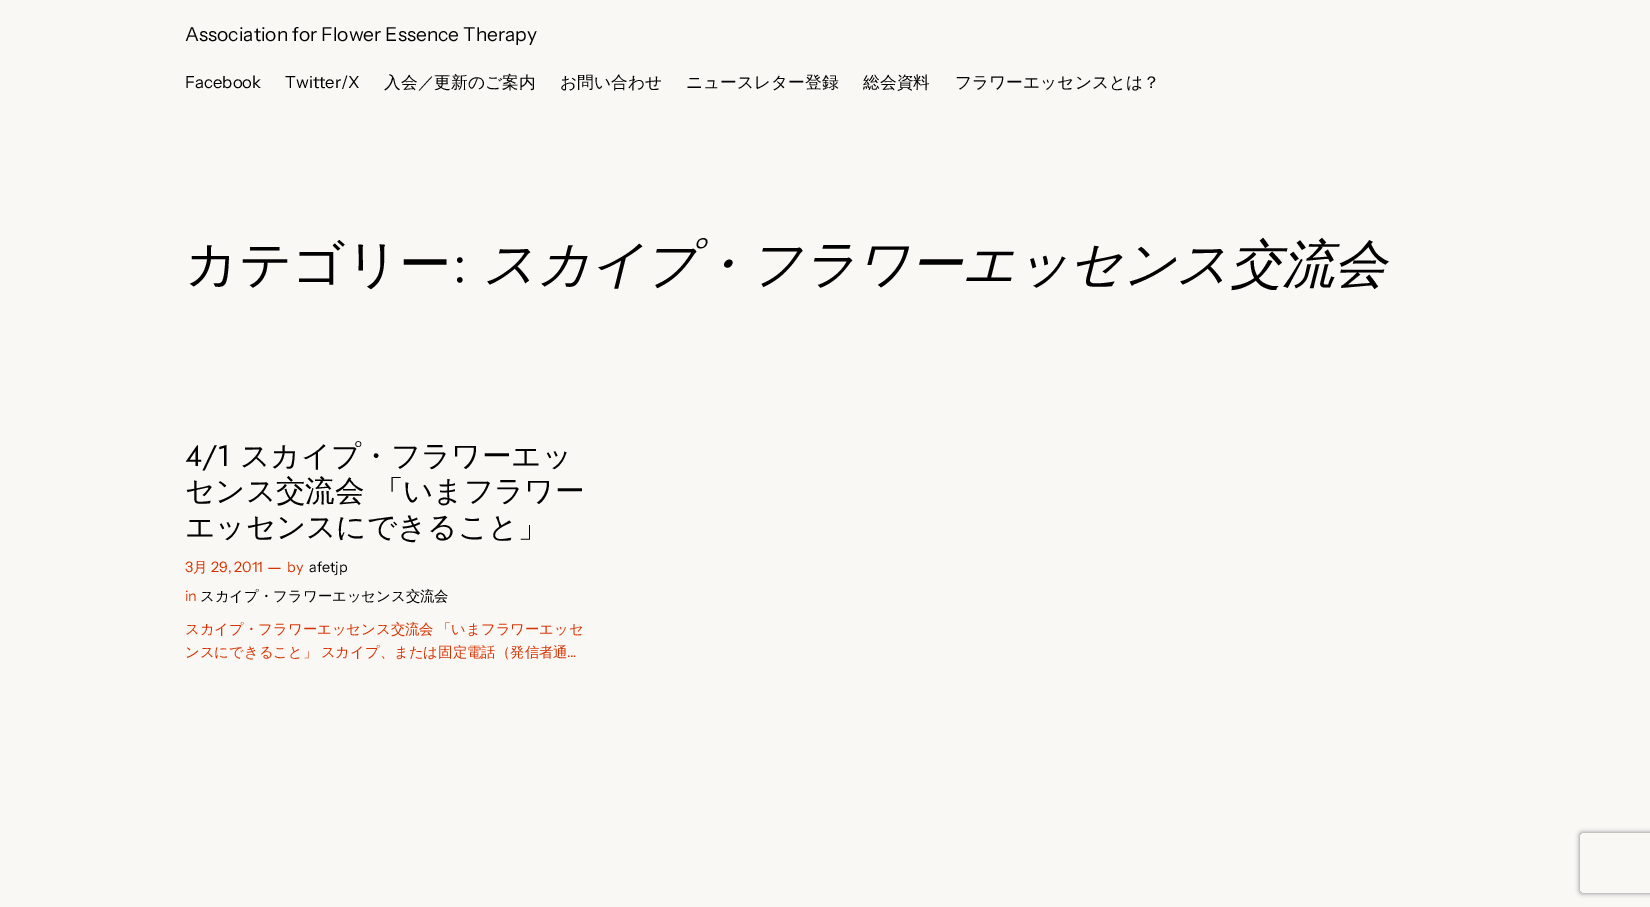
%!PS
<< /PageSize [1650 907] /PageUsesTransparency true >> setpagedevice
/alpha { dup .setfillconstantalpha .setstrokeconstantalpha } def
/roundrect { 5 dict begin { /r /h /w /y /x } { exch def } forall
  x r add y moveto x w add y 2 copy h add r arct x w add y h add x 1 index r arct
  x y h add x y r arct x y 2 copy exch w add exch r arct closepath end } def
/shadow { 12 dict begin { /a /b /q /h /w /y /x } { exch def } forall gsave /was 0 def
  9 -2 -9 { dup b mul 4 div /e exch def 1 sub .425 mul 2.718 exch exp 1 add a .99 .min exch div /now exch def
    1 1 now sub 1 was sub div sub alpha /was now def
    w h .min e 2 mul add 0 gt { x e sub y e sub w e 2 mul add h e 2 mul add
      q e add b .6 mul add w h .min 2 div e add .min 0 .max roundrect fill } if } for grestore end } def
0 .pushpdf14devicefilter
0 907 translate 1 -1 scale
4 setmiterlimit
0.976 0.973 0.961 setrgbcolor
0 0 1650 907 rectfill
/InstrumentSans-Regular [19.25 0 0 -19.25 0 0] selectfont
0 setgray
185 41 moveto (Association for Flower Essence Therapy) show
/InstrumentSans-Regular [16.75 0 0 -16.75 0 0] selectfont
185 88 moveto (Facebook) show
285 88 moveto (Twitter/X) show
/WenQuanYiZenHei-Medium [16.75 0 0 -16.75 0 0] selectfont
384 88 moveto (入会／更新のご案内) show
560 88 moveto (お問い合わせ) show
686 88 moveto (ニュースレター登録) show
863 88 moveto (総会資料) show
955 88 moveto (フラワーエッセンスとは？) show
/WenQuanYiZenHei-Medium [52.3 0 0 -52.3 0 0] selectfont
185 282 moveto (カテゴリー) show
/Jost-Regular [52.3 0 0 -52.3 0 0] selectfont
452 282 moveto (:) show
/WenQuanYiZenHei-MediumItalic [52.3 0 0 -52.3 0 0] selectfont
483 282 moveto (スカイプ・フラワーエッセンス交流会) show
/Jost-Regular [29.6 0 0 -29.6 0 0] selectfont
185 466 moveto (4/1) show
/WenQuanYiZenHei-Medium [29.6 0 0 -29.6 0 0] selectfont
240 466 moveto (スカイプ・フラワーエッ) show
185 501 moveto (センス交流会 「いまフラワー) show
185 537 moveto (エッセンスにできること」) show
/InstrumentSans-Regular [14.4 0 0 -14.4 0 0] selectfont
0.843 0.2 0.004 setrgbcolor
185 572 moveto (3) show
/WenQuanYiZenHei-Medium [14.4 0 0 -14.4 0 0] selectfont
193 572 moveto (月) show
/InstrumentSans-Regular [14.4 0 0 -14.4 0 0] selectfont
211 572 moveto (29, 2011) show
/InstrumentSans-Regular [16.75 0 0 -16.75 0 0] selectfont
267 573 moveto (—) show
/InstrumentSans-Regular [14.4 0 0 -14.4 0 0] selectfont
287 572 moveto (by) show
0 setgray
309 572 moveto (afetjp) show
0.843 0.2 0.004 setrgbcolor
185 601 moveto (in) show
/WenQuanYiZenHei-Medium [14.4 0 0 -14.4 0 0] selectfont
0 setgray
200 601 moveto (スカイプ・フラワーエッセンス交流会) show
0.843 0.2 0.004 setrgbcolor
185 634 moveto (スカイプ・フラワーエッセンス交流会) show
437 634 moveto (「いまフラワーエッセ) show
185 657 moveto -1 0 32 (ンスにできること」 スカイプ、または固定電話（発信者通) widthshow
/InstrumentSans-Regular [14.4 0 0 -14.4 0 0] selectfont
567 657 moveto (…) show
gsave
newpath 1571 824 moveto 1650 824 lineto 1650 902 lineto 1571 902 lineto closepath 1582 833 moveto 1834 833 lineto 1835 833 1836 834 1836 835 curveto 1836 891 lineto 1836 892 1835 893 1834 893 curveto 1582 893 lineto 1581 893 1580 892 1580 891 curveto 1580 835 lineto 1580 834 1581 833 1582 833 curveto closepath eoclip newpath
0.502 setgray
1580 833 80 60 2 2.5 1 shadow
grestore
.poppdf14devicefilter showpage
